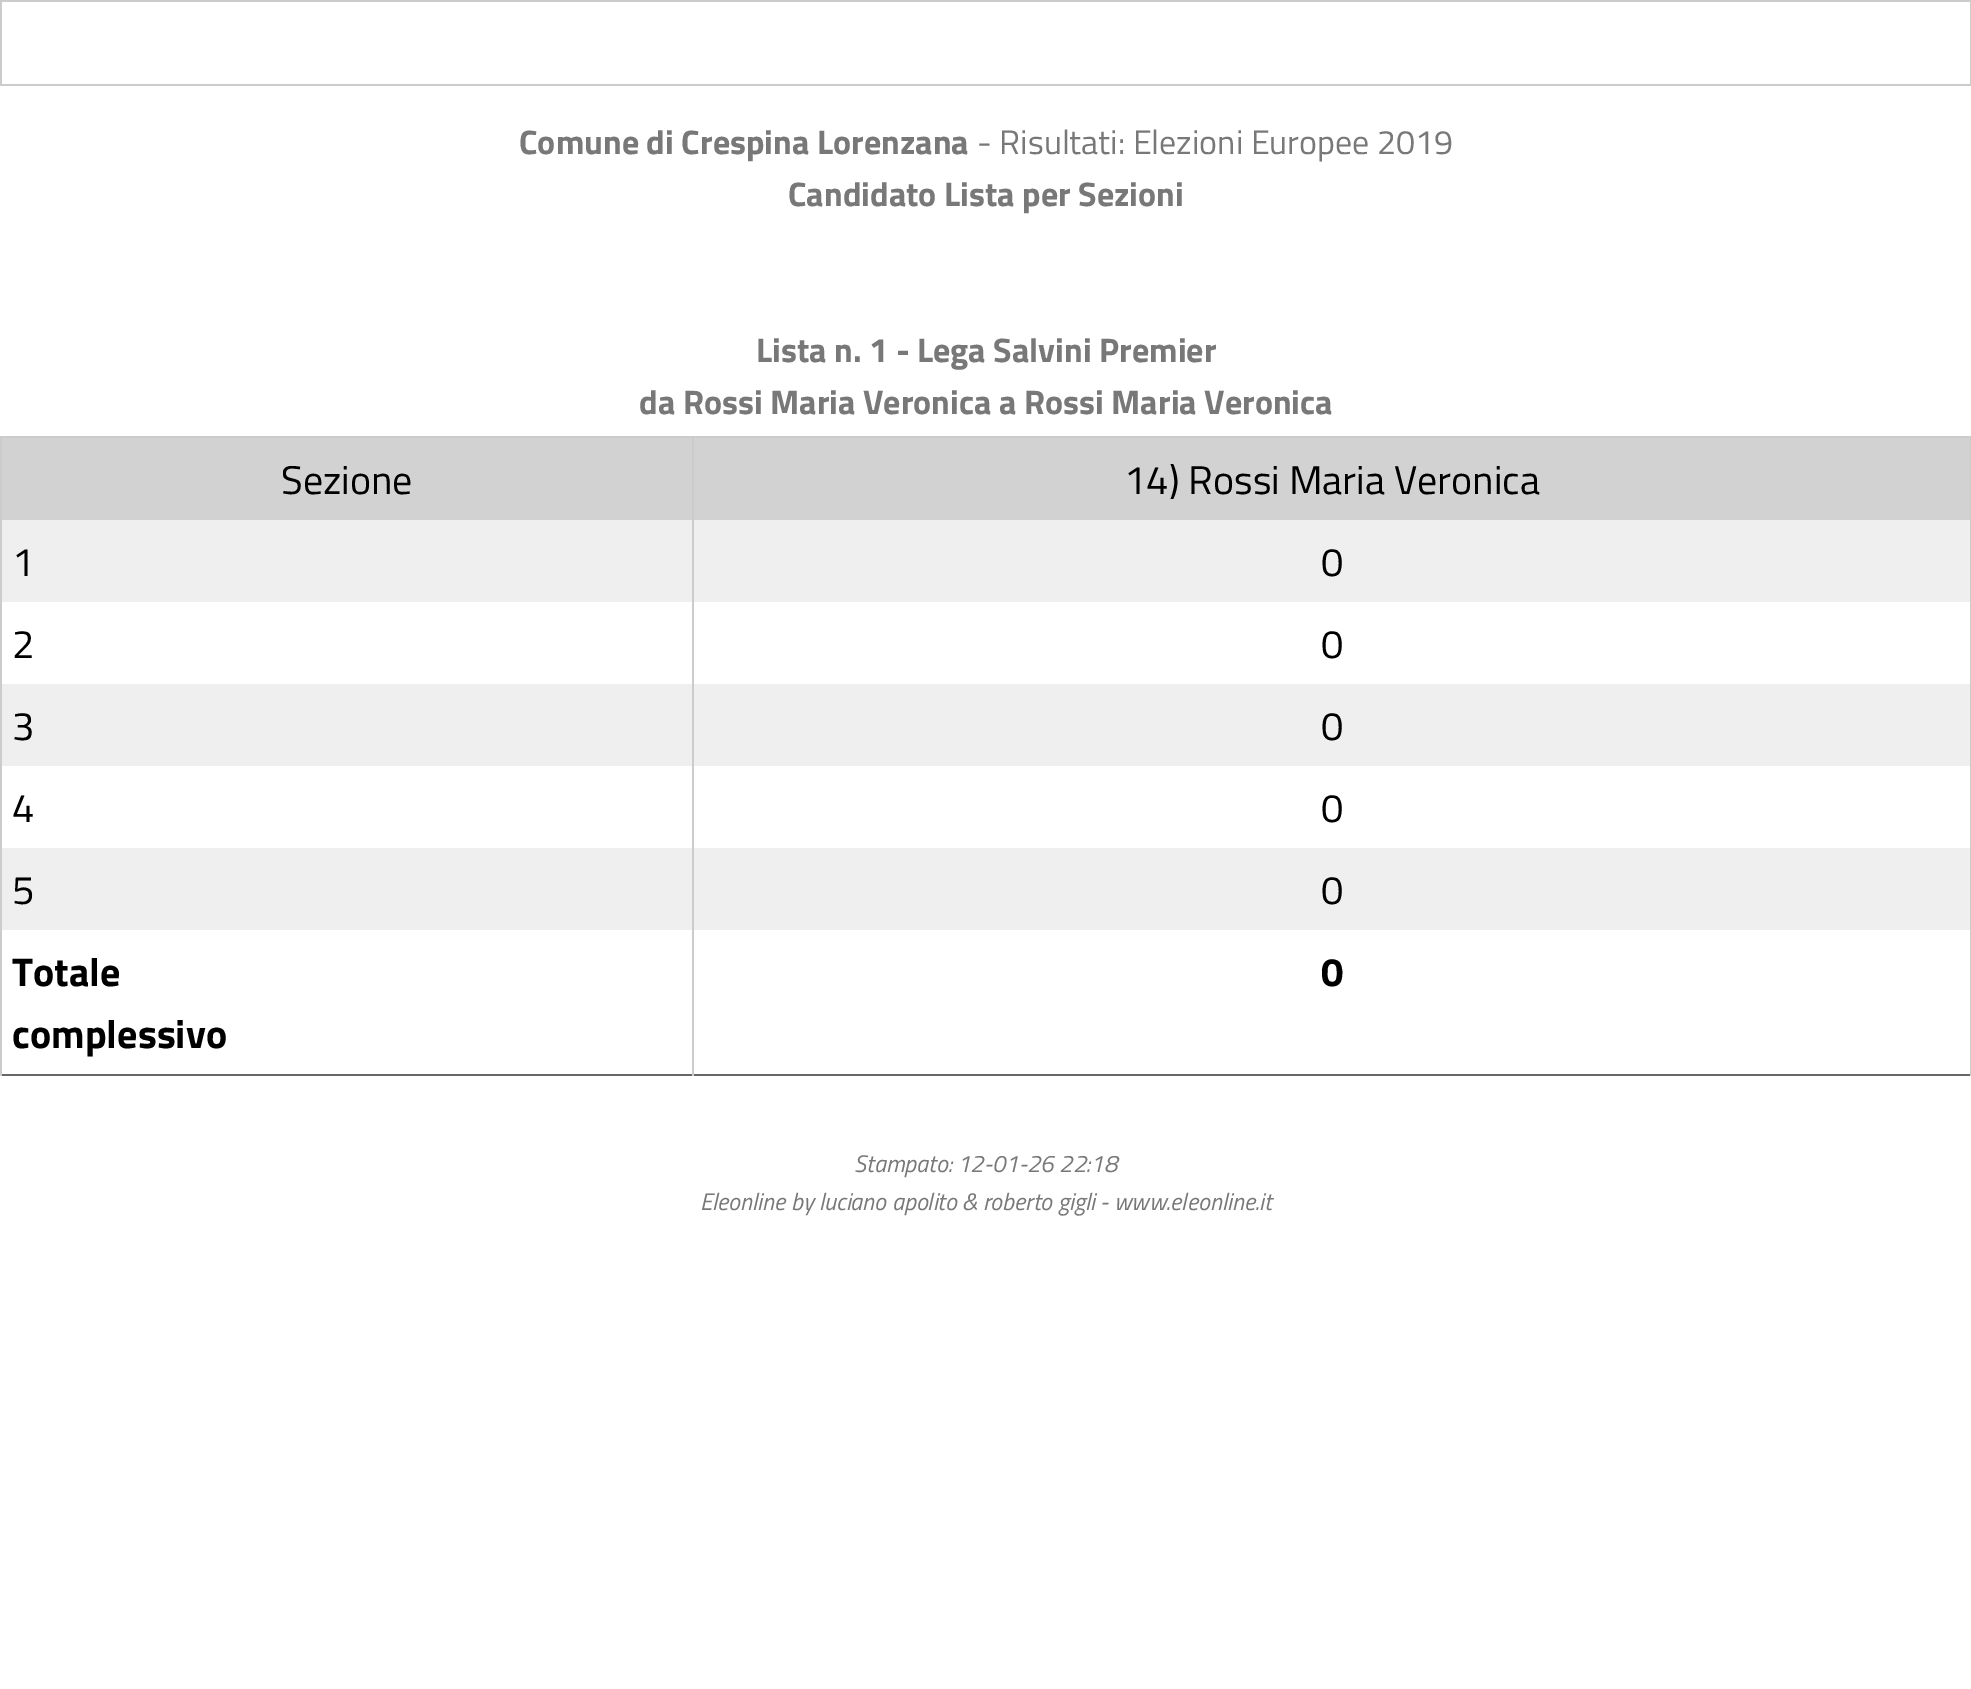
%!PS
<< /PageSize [1971 1689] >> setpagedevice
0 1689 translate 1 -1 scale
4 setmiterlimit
1 setgray
0 0 1971 1689 rectfill
0.8 setgray
0 0 1971 2 rectfill
1970 0 1 86 rectfill
0 84 1971 2 rectfill
0 0 2 86 rectfill
/TitilliumWeb-Bold [34 0 0 -34 0 0] selectfont
0.471 setgray
519 154 moveto (Comune di Crespina Lorenzana) show
/TitilliumWeb-Regular [34 0 0 -34 0 0] selectfont
977 154 moveto (- Risultati: Elezioni Europee 2019) show
/TitilliumWeb-Bold [34 0 0 -34 0 0] selectfont
788 206 moveto (Candidato Lista per Sezioni) show
756 362 moveto (Lista n. 1 - Lega Salvini Premier) show
639 414 moveto (da Rossi Maria Veronica a Rossi Maria Veronica) show
0.8 setgray
0 436 1971 2 rectfill
1970 436 1 494 rectfill
0.4 setgray
0 1074 1971 2 rectfill
0.8 setgray
0 436 2 640 rectfill
0.824 setgray
2 438 1968 82 rectfill
/TitilliumWeb-Regular [40 0 0 -40 0 0] selectfont
0 setgray
281 494 moveto (Sezione) show
1124 494 moveto (14\) Rossi Maria Veronica) show
0.937 setgray
2 520 1968 82 rectfill
0 setgray
12 576 moveto (1) show
1321 576 moveto (0) show
12 658 moveto (2) show
1321 658 moveto (0) show
0.937 setgray
2 684 1968 82 rectfill
0 setgray
12 740 moveto (3) show
1321 740 moveto (0) show
12 822 moveto (4) show
1321 822 moveto (0) show
0.937 setgray
2 848 1968 82 rectfill
0 setgray
12 904 moveto (5) show
1321 904 moveto (0) show
/TitilliumWeb-Bold [40 0 0 -40 0 0] selectfont
12 986 moveto (Totale) show
12 1048 moveto (complessivo) show
0.8 setgray
1970 930 1 146 rectfill
692 436 2 640 rectfill
0 setgray
1321 986 moveto (0) show
/TitilliumWeb-Italic [24 0 0 -24 0 0] selectfont
0.471 setgray
854 1172 moveto (Stampato: 12-01-26 22:18) show
700 1210 moveto (Eleonline by luciano apolito & roberto gigli - www.eleonline.it) show
showpage
